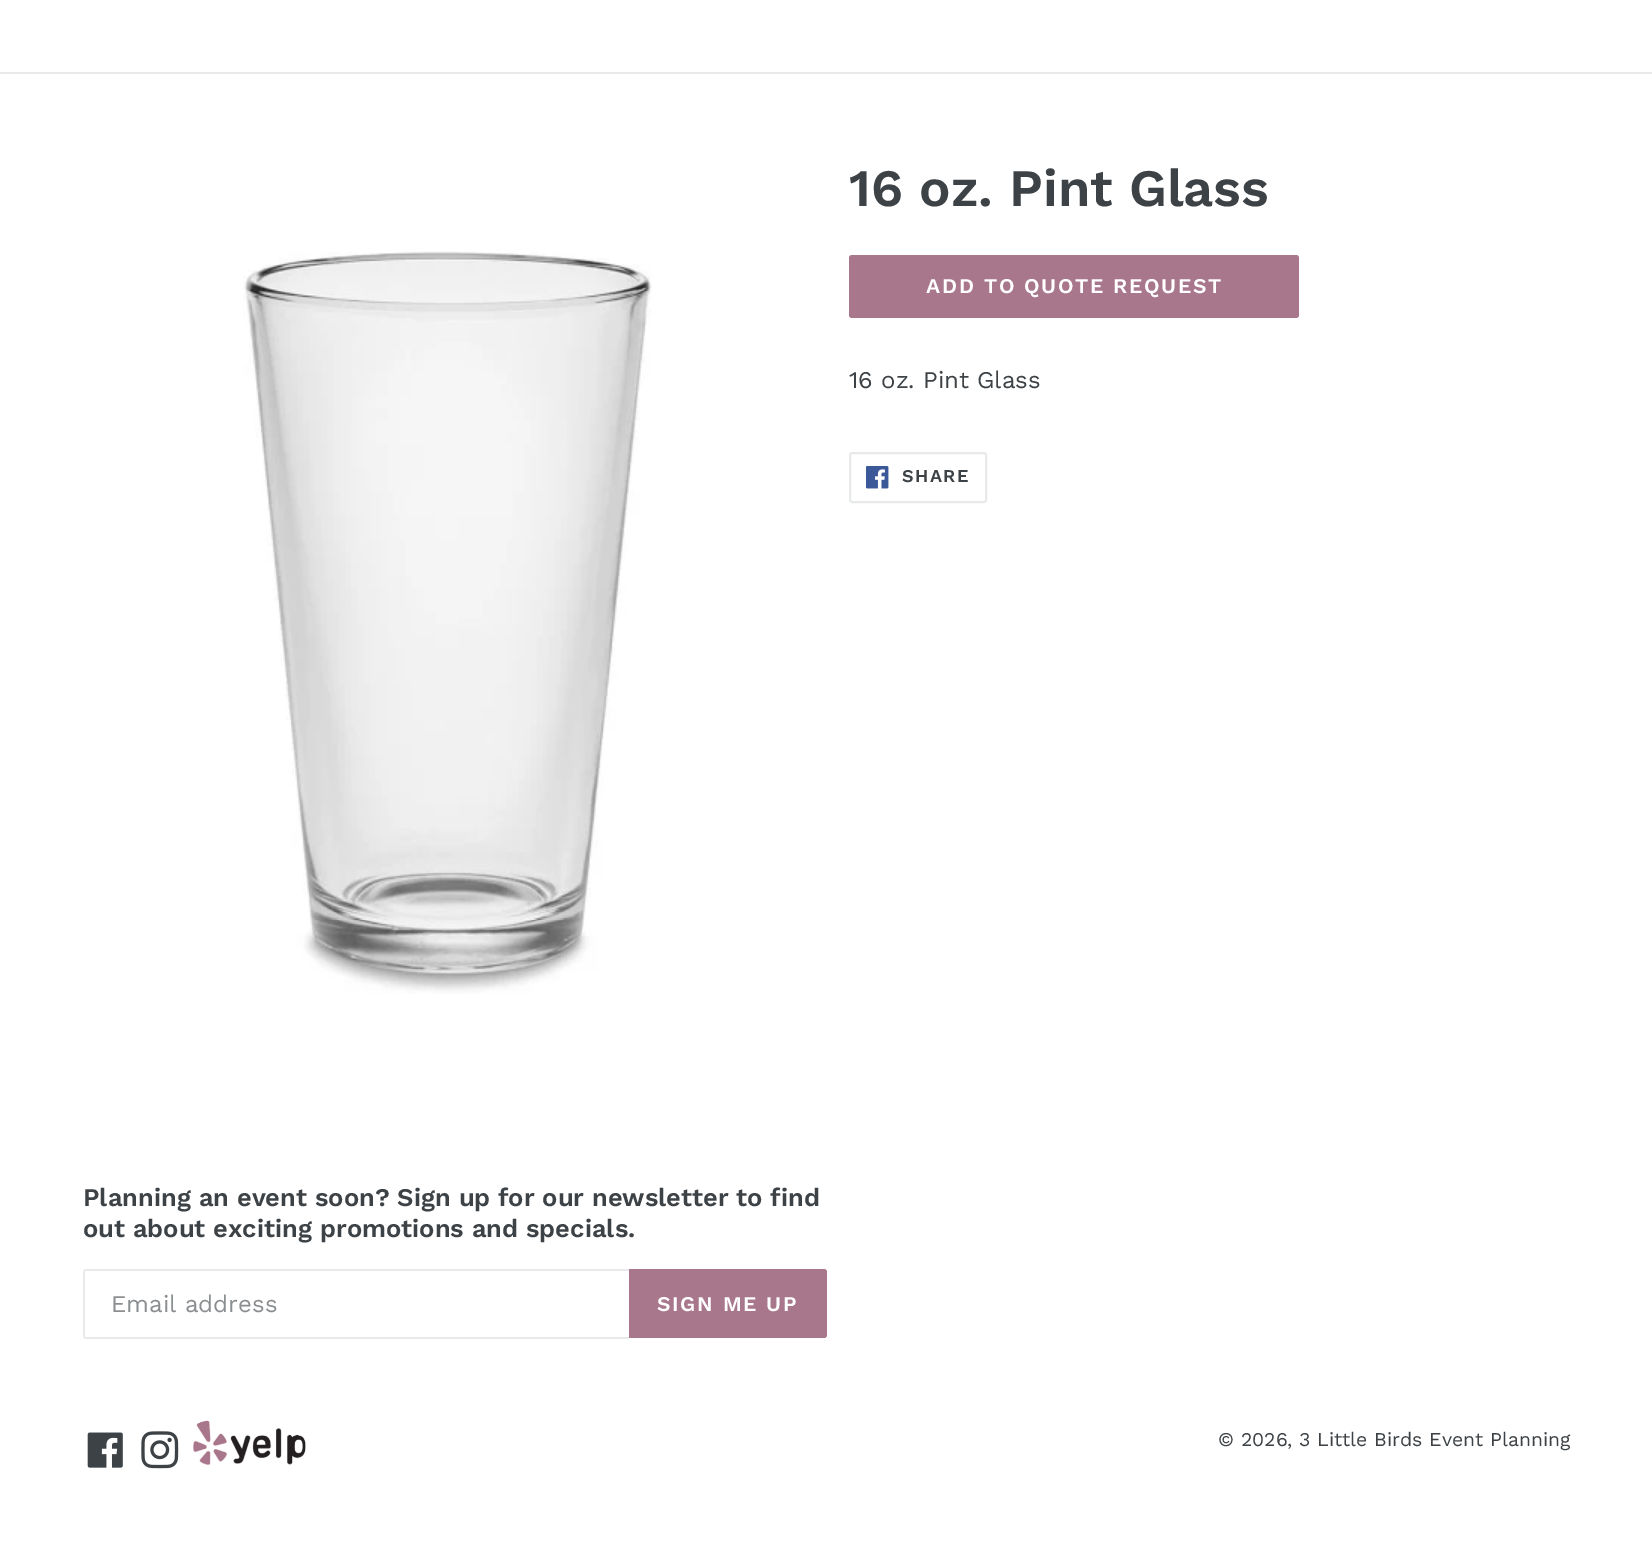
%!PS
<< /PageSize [1652 1542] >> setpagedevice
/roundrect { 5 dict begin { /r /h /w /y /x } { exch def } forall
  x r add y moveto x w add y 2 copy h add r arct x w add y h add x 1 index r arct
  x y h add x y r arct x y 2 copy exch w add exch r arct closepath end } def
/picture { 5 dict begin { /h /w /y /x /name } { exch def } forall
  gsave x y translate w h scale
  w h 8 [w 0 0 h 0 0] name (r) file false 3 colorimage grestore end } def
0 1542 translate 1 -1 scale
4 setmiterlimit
1 setgray
0 0 1652 1542 rectfill
0.91 0.914 0.922 setrgbcolor
0 72 1652 2 rectfill
(img1.rgb) 243 251 409 743 picture
/WorkSans-SemiBold [52.5 0 0 -52.5 0 0] selectfont
0.239 0.259 0.275 setrgbcolor
849 206 moveto (16 oz. Pint Glass) show
0.659 0.467 0.549 setrgbcolor
849 255 450 63 3 roundrect fill
/WorkSans-SemiBold [21 0 0 -21 0 0] selectfont
1 setgray
926 293 moveto 1.7 0 (ADD TO QUOTE REQUEST) ashow
/WorkSans-Regular [24 0 0 -24 0 0] selectfont
0.239 0.259 0.275 setrgbcolor
849 388 moveto (16 oz. Pint Glass) show
0.91 0.914 0.922 setrgbcolor
2 setlinewidth
850 453 136 49 2 roundrect stroke
(img2.rgb) 866 466 23 23 picture
/WorkSans-SemiBold [18 0 0 -18 0 0] selectfont
0.239 0.259 0.275 setrgbcolor
902 482 moveto 1.5 0 (SHARE) ashow
/WorkSans-SemiBold [25.5 0 0 -25.5 0 0] selectfont
83 1206 moveto (Planning an event soon? Sign up for our newsletter to find) show
83 1237 moveto (out about exciting promotions and specials.) show
0.91 0.914 0.922 setrgbcolor
84 1269 545 2 rectfill
84 1337 545 2 rectfill
83 1271 2 66 rectfill
/WorkSans-Regular [24 0 0 -24 0 0] selectfont
0.545 0.557 0.565 setrgbcolor
111 1312 moveto (Email address) show
0.659 0.467 0.549 setrgbcolor
newpath 629 1269 moveto 824 1269 lineto 825.5 1269 827 1270.5 827 1272 curveto 827 1335 lineto 827 1336.5 825.5 1338 824 1338 curveto 629 1338 lineto closepath fill
/WorkSans-SemiBold [21 0 0 -21 0 0] selectfont
1 setgray
657 1311 moveto 1.7 0 (SIGN ME UP) ashow
(img3.rgb) 87 1432 36 36 picture
(img4.rgb) 141 1431 38 38 picture
(img5.rgb) 193 1420 113 45 picture
/WorkSans-Regular [19.5 0 0 -19.5 0 0] selectfont
0.239 0.259 0.275 setrgbcolor
1218 1446 moveto (© 2026, 3 Little Birds Event Planning) show
showpage
